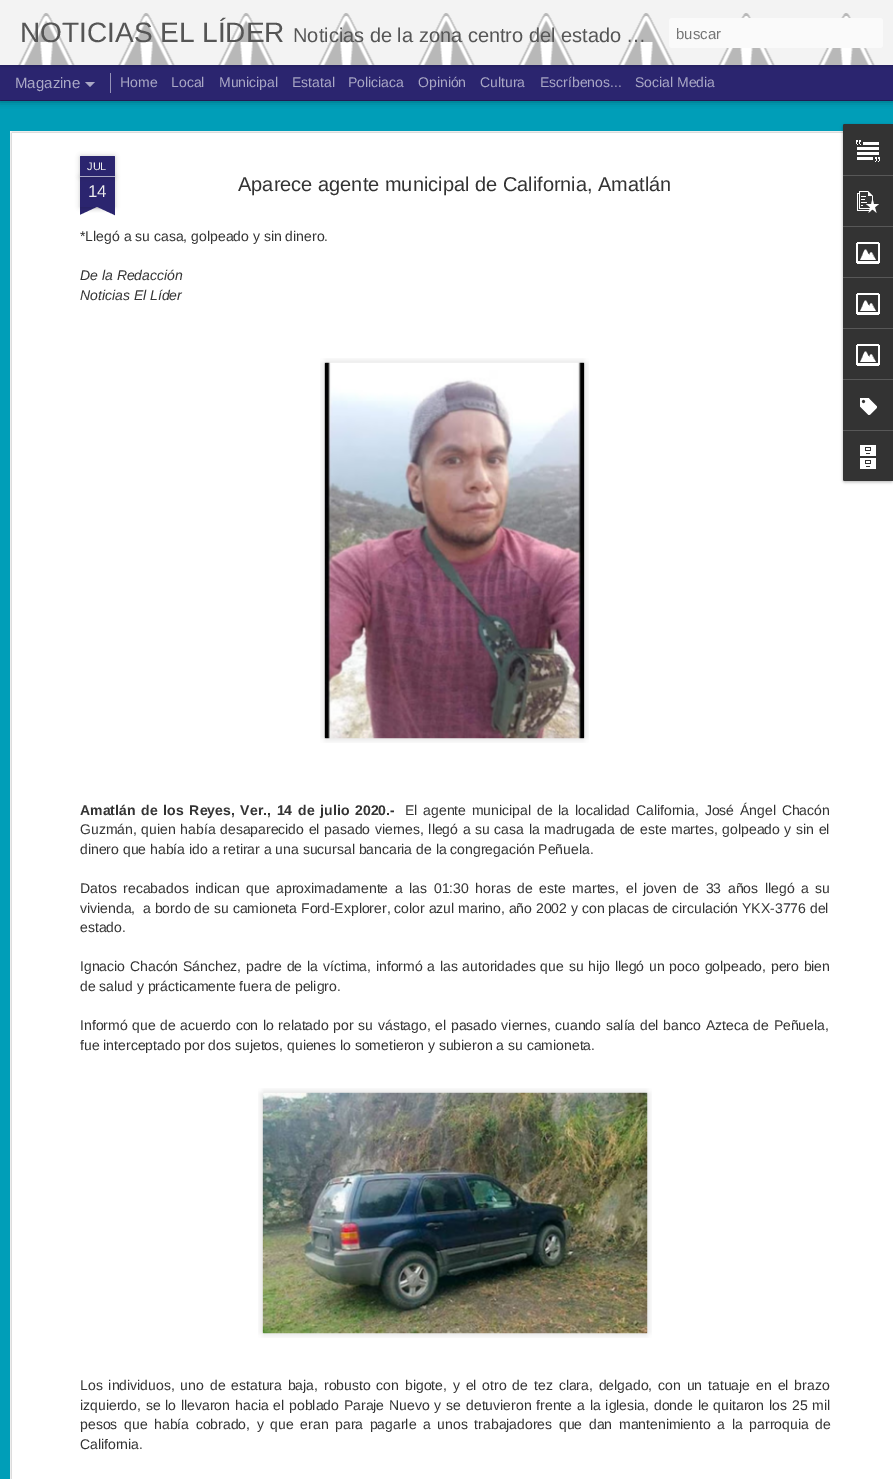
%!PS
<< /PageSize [893 1479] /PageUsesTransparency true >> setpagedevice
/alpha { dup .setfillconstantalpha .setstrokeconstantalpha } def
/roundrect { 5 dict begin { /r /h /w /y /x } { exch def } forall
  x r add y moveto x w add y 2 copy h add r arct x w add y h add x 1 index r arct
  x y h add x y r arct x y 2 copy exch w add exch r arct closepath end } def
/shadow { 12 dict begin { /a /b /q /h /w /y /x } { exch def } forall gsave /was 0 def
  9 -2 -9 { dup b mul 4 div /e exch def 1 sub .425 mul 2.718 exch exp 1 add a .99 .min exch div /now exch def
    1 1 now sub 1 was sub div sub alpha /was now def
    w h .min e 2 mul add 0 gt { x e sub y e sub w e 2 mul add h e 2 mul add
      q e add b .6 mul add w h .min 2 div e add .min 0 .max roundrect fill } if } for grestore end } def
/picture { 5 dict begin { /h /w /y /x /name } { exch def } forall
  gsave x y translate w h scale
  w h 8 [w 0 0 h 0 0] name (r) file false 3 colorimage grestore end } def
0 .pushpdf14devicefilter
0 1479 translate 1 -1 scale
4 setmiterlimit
0.169 0.145 0.435 setrgbcolor
0 0 893 1479 rectfill
0 0.62 0.722 setrgbcolor
0 101 893 1378 rectfill
0 setgray
0 65 893 35 0 4 0.5 shadow
0.169 0.145 0.435 setrgbcolor
0 65 893 35 rectfill
0.584 0.573 0.718 setrgbcolor
110 73 1 20 rectfill
0 setgray
0 0 893 65 0 2.5 0.3 shadow
0.953 setgray
0 0 893 65 rectfill
(img1.rgb) 18 13 857 52 picture
/LiberationSans-Regular [28 0 0 -28 0 0] selectfont
0.333 setgray
20 42 moveto (NOTICIAS EL LÍDER) show
/LiberationSans-Regular [20 0 0 -20 0 0] selectfont
293 42 moveto (Noticias de la zona centro del estado …) show
0.98 setgray
669 18 214 30 3 roundrect fill
/LiberationSans-Regular [15 0 0 -15 0 0] selectfont
0.459 setgray
676 39 moveto (buscar) show
0.667 0.659 0.773 setrgbcolor
15 88 moveto (Magazine) show
newpath 85 82 moveto 95 82 lineto 90 87 lineto closepath fill
/LiberationSans-Regular [14 0 0 -14 0 0] selectfont
120 87 moveto (Home) show
171 87 moveto (Local) show
219 87 moveto (Municipal) show
292 87 moveto (Estatal) show
348 87 moveto (Policiaca) show
418 87 moveto (Opinión) show
480 87 moveto (Cultura) show
540 87 moveto (Escríbenos...) show
635 87 moveto (Social Media) show
1 setgray
10 131 883 1348 rectfill
(img2.rgb) 10 131 833 1348 picture
0 setgray
80 177 35 30 0 2.5 0.2 shadow
0.169 0.145 0.435 setrgbcolor
80 177 35 30 rectfill
0 setgray
80 156 35 21 1 2.5 0.2 shadow
0.169 0.145 0.435 setrgbcolor
newpath 81 156 moveto 114 156 lineto 114.5 156 115 156.5 115 157 curveto 115 177 lineto 80 177 lineto 80 157 lineto 80 156.5 80.5 156 81 156 curveto closepath fill
0.667 0.659 0.773 setrgbcolor
80 176 35 1 rectfill
/LiberationSans-Regular [11 0 0 -11 0 0] selectfont
0.933 setgray
87 170 moveto (JUL) show
/LiberationSans-Regular [17 0 0 -17 0 0] selectfont
88 197 moveto (14) show
gsave
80 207 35 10 rectclip
0 setgray
71 197 50 10 0 2.5 0.2 shadow
grestore
gsave
80 207 35 10 rectclip
0.169 0.145 0.435 setrgbcolor
newpath 71 208 moveto 116 187 lineto 120 196 lineto 75 217 lineto closepath fill
grestore
gsave
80 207 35 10 rectclip
0 setgray
74 197 50 10 0 2.5 0.2 shadow
grestore
gsave
80 207 35 10 rectclip
0.169 0.145 0.435 setrgbcolor
newpath 78 187 moveto 123 208 lineto 119 217 lineto 74 196 lineto closepath fill
grestore
/LiberationSans-Regular [20 0 0 -20 0 0] selectfont
0.2 setgray
238 191 moveto (Aparece agente municipal de California, Amatlán) show
/LiberationSans-Regular [14 0 0 -14 0 0] selectfont
80 241 moveto (*Llegó a su casa, golpeado y sin dinero.) show
/LiberationSans-Italic [14 0 0 -14 0 0] selectfont
80 280 moveto (De la Redacción) show
80 300 moveto (Noticias El Líder) show
(img3.rgb) 320 358 269 385 picture
(img4.rgb) 324 362 261 377 picture
/LiberationSans-Bold [14 0 0 -14 0 0] selectfont
80 815 moveto 2 0 32 (Amatlán de los Reyes, Ver., 14 de julio 2020.-) widthshow
/LiberationSans-Regular [14 0 0 -14 0 0] selectfont
405 815 moveto 1.9 0 32 (El agente municipal de la localidad California, José Ángel Chacón) widthshow
80 834 moveto 0.75 0 32 (Guzmán, quien había desaparecido el pasado viernes, llegó a su casa la madrugada de este martes, golpeado y sin el) widthshow
80 854 moveto (dinero que había ido a retirar a una sucursal bancaria de la congregación Peñuela.) show
80 893 moveto 2.75 0 32 (Datos recabados indican que aproximadamente a las 01:30 horas de este martes, el joven de 33 años llegó a su) widthshow
80 913 moveto (vivienda,  a bordo de su camioneta Ford-Explorer, color azul marino, año 2002 y con placas de circulación YKX-3776 del) show
80 932 moveto (estado.) show
80 971 moveto 0.9 0 32 (Ignacio Chacón Sánchez, padre de la víctima, informó a las autoridades que su hijo llegó un poco golpeado, pero bien) widthshow
80 991 moveto (de salud y prácticamente fuera de peligro.) show
80 1030 moveto 0.75 0 32 (Informó que de acuerdo con lo relatado por su vástago, el pasado viernes, cuando salía del banco Azteca de Peñuela,) widthshow
80 1050 moveto (fue interceptado por dos sujetos, quienes lo sometieron y subieron a su camioneta.) show
(img5.rgb) 258 1088 394 250 picture
(img6.rgb) 262 1092 386 242 picture
80 1390 moveto 2 0 32 (Los individuos, uno de estatura baja, robusto con bigote, y el otro de tez clara, delgado, con un tatuaje en el brazo) widthshow
80 1410 moveto 1 0 32 (izquierdo, se lo llevaron hacia el poblado Paraje Nuevo y se detuvieron frente a la iglesia, donde le quitaron los 25 mil) widthshow
80 1429 moveto 2.75 0 32 (pesos que había cobrado, y que eran para pagarle a unos trabajadores que dan mantenimiento a la parroquia de) widthshow
80 1449 moveto (California.) show
0 setgray
843 125 50 357 2 1.5 0.3 shadow
0.2 setgray
newpath 845 124 moveto 893 124 lineto 893 481 lineto 845 481 lineto 844 481 843 480 843 479 curveto 843 126 lineto 843 125 844 124 845 124 curveto closepath fill
newpath 845 124 moveto 893 124 lineto 893 175 lineto 843 175 lineto 843 126 lineto 843 125 844 124 845 124 curveto closepath fill
(img7.rgb) 856 140 24 22 picture
0.345 setgray
843 175 50 1 rectfill
(img8.rgb) 857 191 22 22 picture
843 226 50 1 rectfill
(img9.rgb) 856 242 24 22 picture
843 277 50 1 rectfill
(img9.rgb) 856 293 24 22 picture
843 328 50 1 rectfill
(img9.rgb) 856 344 24 22 picture
843 379 50 1 rectfill
(img10.rgb) 860 398 17 17 picture
0.2 setgray
newpath 843 430 moveto 893 430 lineto 893 481 lineto 845 481 lineto 844 481 843 480 843 479 curveto closepath fill
0.345 setgray
843 430 50 1 rectfill
(img11.rgb) 860 445 16 24 picture
.poppdf14devicefilter showpage
